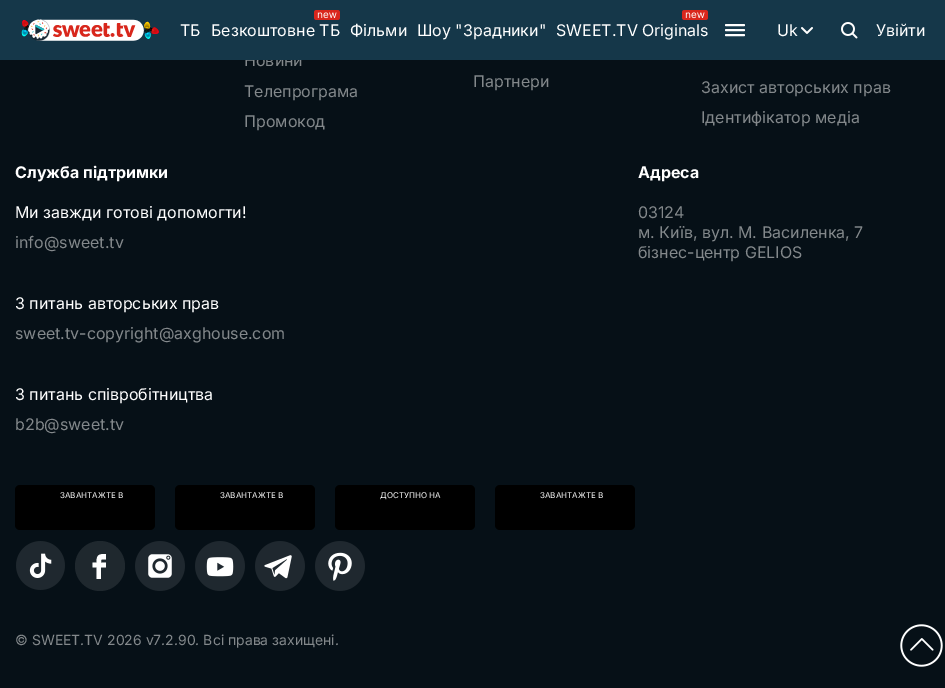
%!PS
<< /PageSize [945 688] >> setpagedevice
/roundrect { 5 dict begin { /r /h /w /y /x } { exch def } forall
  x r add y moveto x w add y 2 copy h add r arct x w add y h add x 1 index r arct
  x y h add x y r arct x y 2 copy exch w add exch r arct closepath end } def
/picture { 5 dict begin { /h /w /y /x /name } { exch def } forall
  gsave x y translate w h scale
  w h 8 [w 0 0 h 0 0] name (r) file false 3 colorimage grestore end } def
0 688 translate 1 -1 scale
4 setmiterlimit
0.024 0.063 0.09 setrgbcolor
0 0 945 688 rectfill
/Inter-Regular [16 0 0 -16 0 0] selectfont
0.514 0.533 0.545 setrgbcolor
244 66 moveto (Новини) show
0.082 0.216 0.286 setrgbcolor
0 0 945 60 rectfill
(img1.rgb) 21 19 138 22 picture
1 setgray
180 36 moveto (ТБ) show
(img2.rgb) 314 10 26 10 picture
211 36 moveto (Безкоштовне ТБ) show
350 36 moveto (Фільми) show
417 36 moveto (Шоу "Зрадники") show
(img2.rgb) 682 10 26 10 picture
556 36 moveto (SWEET.TV Originals) show
2 setlinewidth
1 setlinecap
newpath 726 25 moveto 744 25 lineto 726 30 moveto 744 30 lineto 726 35 moveto 744 35 lineto stroke
777 36 moveto (Uk) show
(img3.rgb) 801 27 12 7 picture
(img4.rgb) 841 22 17 17 picture
876 36 moveto (Увійти) show
0.514 0.533 0.545 setrgbcolor
244 97 moveto (Телепрограма) show
244 127 moveto (Промокод) show
473 87 moveto (Партнери) show
701 93 moveto (Захист авторських прав) show
701 123 moveto (Ідентифікатор медіа) show
/Inter-Bold [16 0 0 -16 0 0] selectfont
1 setgray
15 178 moveto (Служба підтримки) show
/Inter-Regular [16 0 0 -16 0 0] selectfont
15 218 moveto (Ми завжди готові допомогти!) show
0.514 0.533 0.545 setrgbcolor
15 248 moveto (info@sweet.tv) show
1 setgray
15 309 moveto (З питань авторських прав) show
0.514 0.533 0.545 setrgbcolor
15 339 moveto (sweet.tv-copyright@axghouse.com) show
1 setgray
15 400 moveto (З питань співробітництва) show
0.514 0.533 0.545 setrgbcolor
15 430 moveto (b2b@sweet.tv) show
/Inter-Bold [16 0 0 -16 0 0] selectfont
1 setgray
638 178 moveto (Адреса) show
/Inter-Regular [16 0 0 -16 0 0] selectfont
0.514 0.533 0.545 setrgbcolor
638 218 moveto (03124) show
638 238 moveto (м. Київ, вул. М. Василенка, 7) show
638 258 moveto (бізнес-центр GELIOS) show
0 setgray
15 485 140 45 5 roundrect fill
/Inter-Regular [8 0 0 -8 0 0] selectfont
1 setgray
60 498 moveto (ЗАВАНТАЖТЕ В) show
0 setgray
175 485 140 45 5 roundrect fill
1 setgray
220 498 moveto (ЗАВАНТАЖТЕ В) show
0 setgray
335 485 140 45 5 roundrect fill
1 setgray
380 498 moveto (ДОСТУПНО НА) show
0 setgray
495 485 140 45 5 roundrect fill
1 setgray
540 498 moveto (ЗАВАНТАЖТЕ В) show
(img5.rgb) 16 541 49 49 picture
0.122 0.157 0.18 setrgbcolor
newpath 100 566 25 0 360 arc closepath fill
1 setgray
newpath 96.5 567.5 moveto 96.5 579 lineto 101 579 lineto 101 567.5 lineto 106 567.5 lineto 106 562.5 lineto 101 562.5 lineto 101 558 101.5 559.5 106 559.5 curveto 106 554 lineto 99 554 96.5 554.5 96.5 562.5 curveto 92.5 562.5 lineto 92.5 567.5 lineto closepath fill
(img6.rgb) 135 541 50 50 picture
(img7.rgb) 195 541 50 50 picture
(img8.rgb) 255 541 50 50 picture
(img9.rgb) 315 541 50 50 picture
/Inter-Regular [14 0 0 -14 0 0] selectfont
0.514 0.533 0.545 setrgbcolor
15 645 moveto (© SWEET.TV 2026 v7.2.90. Всі права захищені.) show
(img10.rgb) 900 624 43 43 picture
showpage
